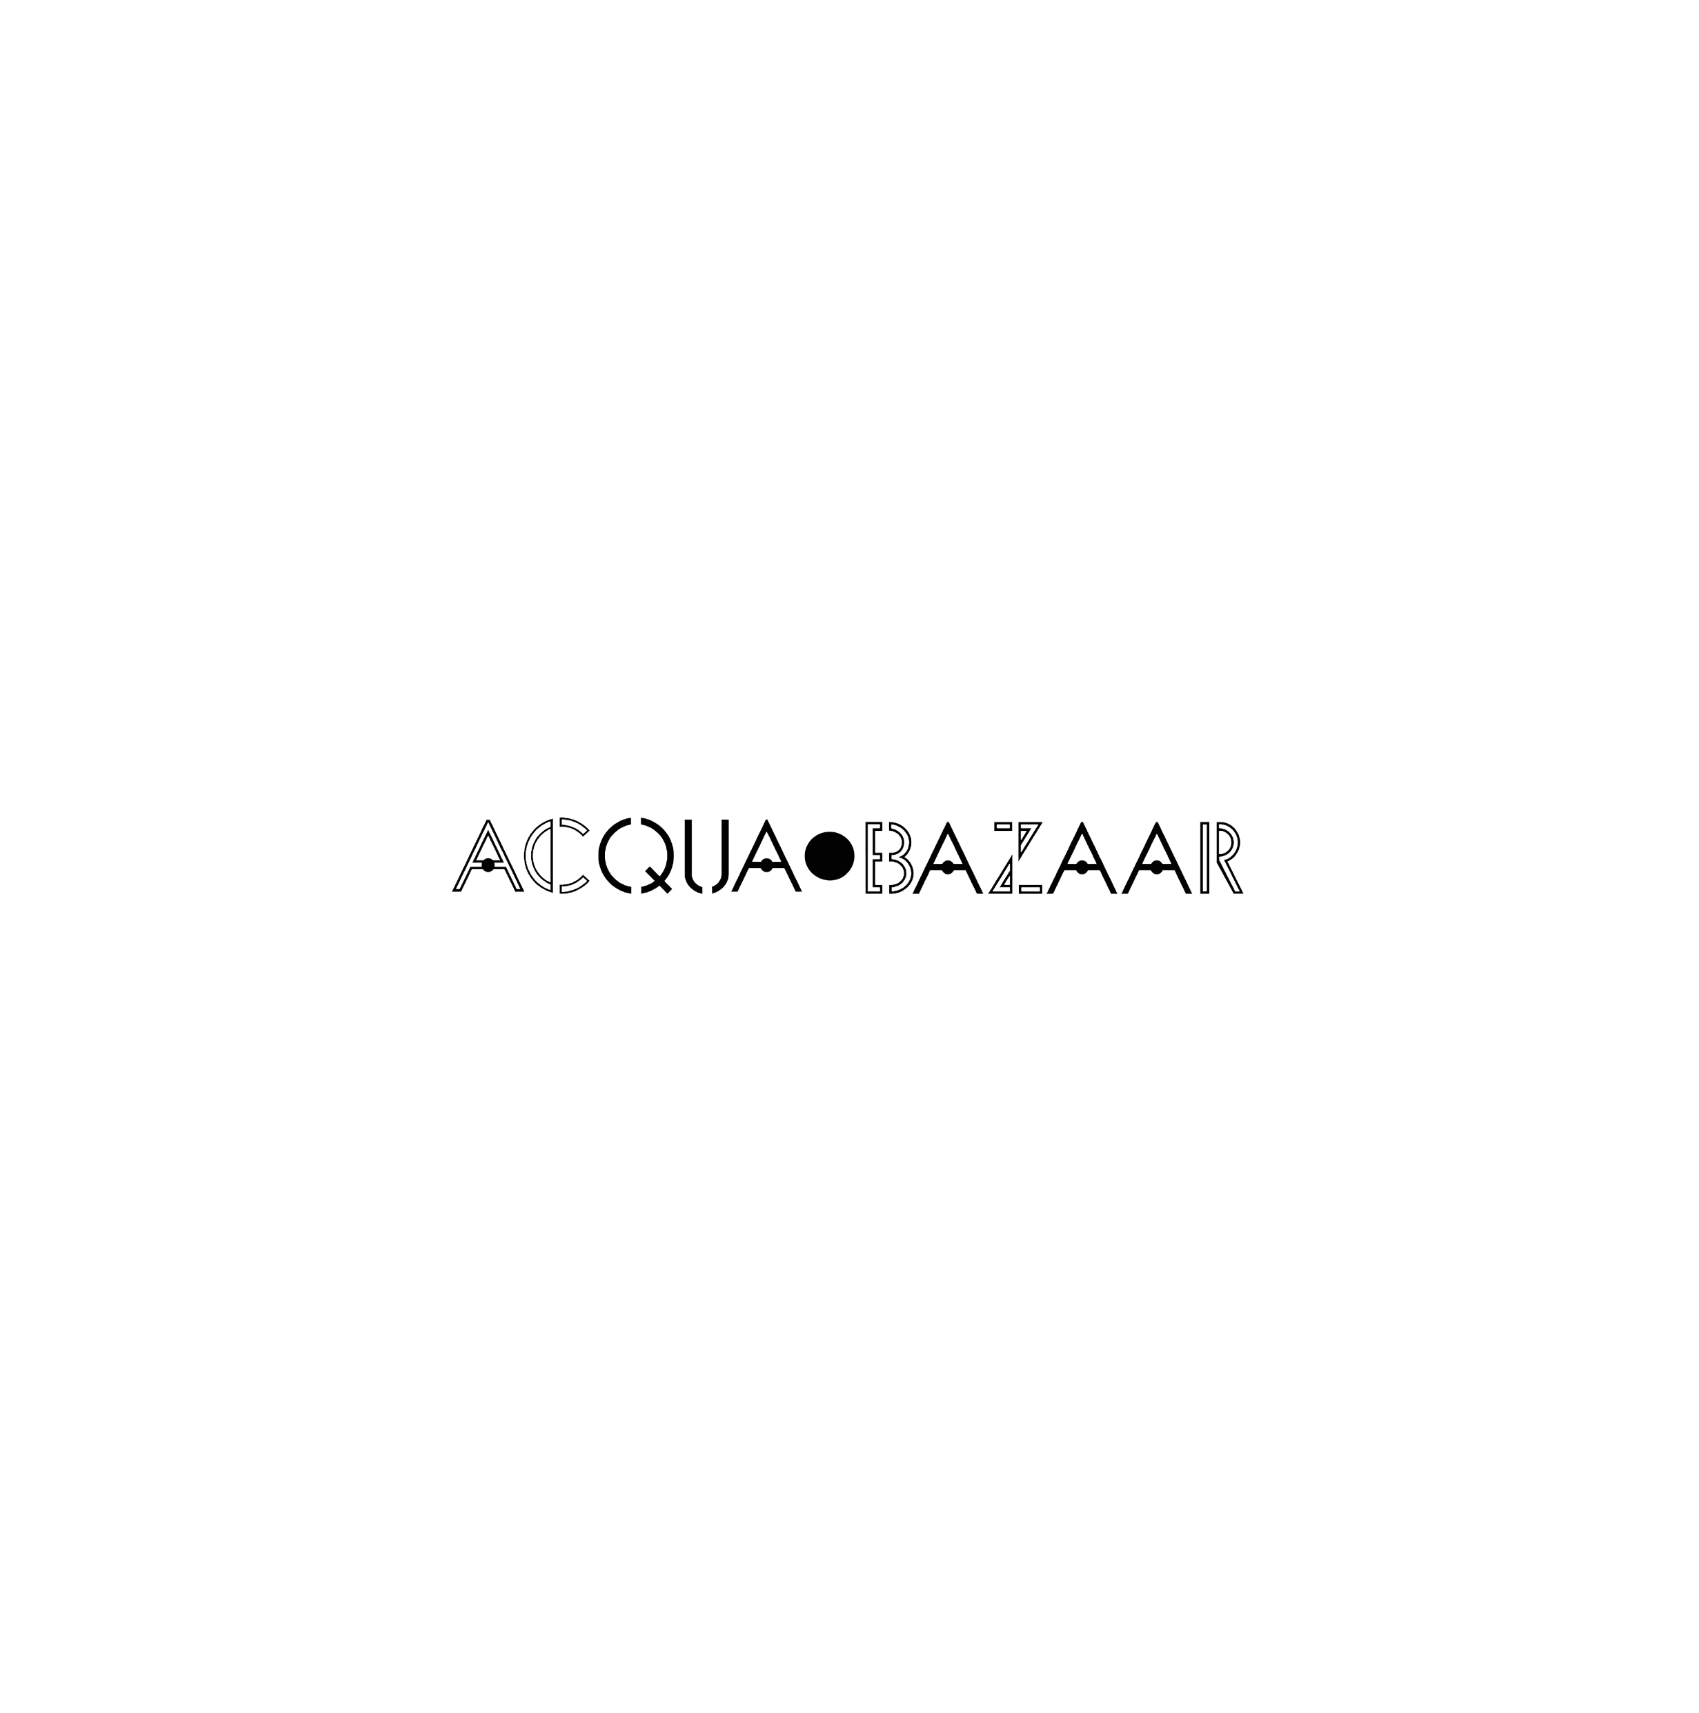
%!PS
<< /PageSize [1699 1713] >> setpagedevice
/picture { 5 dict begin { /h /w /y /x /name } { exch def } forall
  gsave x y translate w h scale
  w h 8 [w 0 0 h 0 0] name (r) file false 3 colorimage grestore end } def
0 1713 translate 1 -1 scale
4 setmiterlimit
1 setgray
0 0 1699 1713 rectfill
(img1.rgb) 451 817 793 77 picture
showpage
